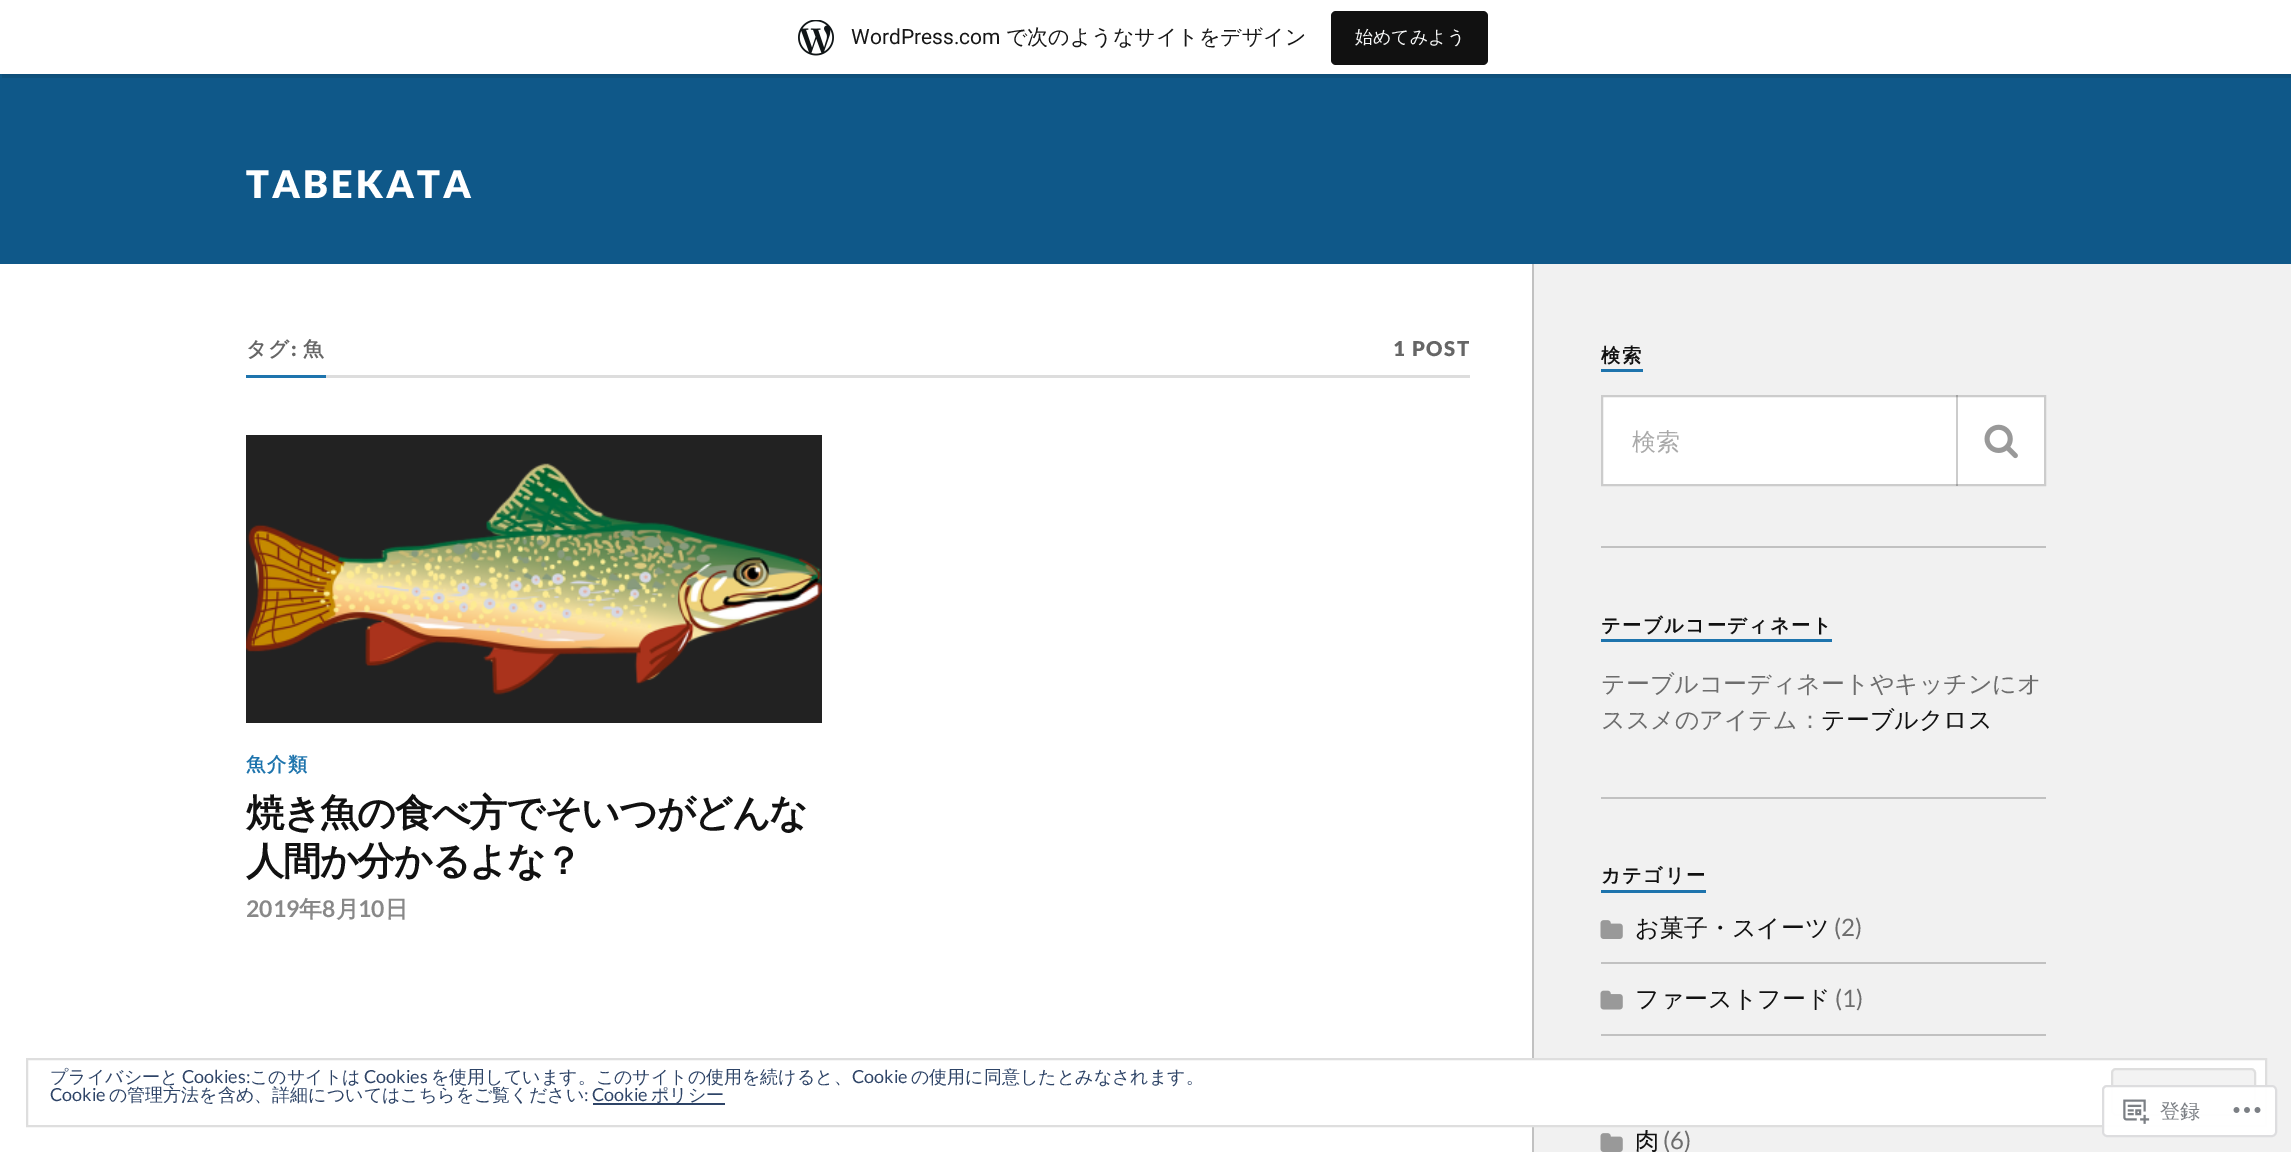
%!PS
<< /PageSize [2291 1152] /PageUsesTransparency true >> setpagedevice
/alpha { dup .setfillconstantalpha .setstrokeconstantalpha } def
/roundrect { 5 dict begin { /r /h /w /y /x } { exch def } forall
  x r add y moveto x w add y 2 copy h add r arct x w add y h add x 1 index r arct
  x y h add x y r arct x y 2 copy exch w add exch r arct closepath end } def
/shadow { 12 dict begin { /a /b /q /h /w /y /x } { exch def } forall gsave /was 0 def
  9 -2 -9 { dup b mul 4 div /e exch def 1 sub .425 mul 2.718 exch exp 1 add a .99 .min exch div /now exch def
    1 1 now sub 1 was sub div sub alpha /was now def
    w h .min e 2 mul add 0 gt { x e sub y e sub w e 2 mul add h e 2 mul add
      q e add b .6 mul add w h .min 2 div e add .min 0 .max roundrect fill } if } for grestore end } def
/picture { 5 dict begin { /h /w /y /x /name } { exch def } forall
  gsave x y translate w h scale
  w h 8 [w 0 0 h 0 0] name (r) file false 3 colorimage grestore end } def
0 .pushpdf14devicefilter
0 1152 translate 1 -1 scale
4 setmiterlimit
0.945 setgray
0 0 2291 1152 rectfill
0.059 0.345 0.537 setrgbcolor
0 74 2291 190 rectfill
0 setgray
0 2 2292 73 0 1.5 0.05 shadow
0.08 alpha
newpath 2 74 moveto 2 78 lineto 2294 78 lineto 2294 5 lineto 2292 5 lineto 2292 74 lineto closepath fill
1 alpha
1 setgray
0 0 2291 74 rectfill
(img1.rgb) 798 20 36 36 picture
/Roboto-Regular [21 0 0 -21 0 0] selectfont
0.09 setgray
851 44 moveto (WordPress.com) show
/WenQuanYiZenHei-Medium [21 0 0 -21 0 0] selectfont
1006 44 moveto (で次のようなサイトをデザイン) show
0.067 setgray
1331 11 157 54 5 roundrect fill
/WenQuanYiZenHei-Medium [18 0 0 -18 0 0] selectfont
0.965 0.969 0.969 setrgbcolor
1355 43 moveto (始めてみよう) show
/Lato-Black [38.25 0 0 -38.25 0 0] selectfont
1 setgray
246 198 moveto 3 0 (TABEKATA) ashow
0 264 1532 888 rectfill
0.867 setgray
326 375 1144 3 rectfill
0.118 0.455 0.678 setrgbcolor
246 375 80 3 rectfill
/WenQuanYiZenHei-Bold [20.5 0 0 -20.5 0 0] selectfont
0.4 setgray
246 356 moveto 1.5 0 (タグ) ashow
/Lato-Black [20.5 0 0 -20.5 0 0] selectfont
291 356 moveto 1.5 0 (:) ashow
/WenQuanYiZenHei-Bold [20.5 0 0 -20.5 0 0] selectfont
303 356 moveto 1.5 0 (魚) ashow
/Lato-Black [20.5 0 0 -20.5 0 0] selectfont
1393 356 moveto 1.5 0 (1 POST) ashow
0.133 setgray
246 435 576 288 rectfill
(img2.rgb) 246 463 576 232 picture
/WenQuanYiZenHei-Bold [19.25 0 0 -19.25 0 0] selectfont
0.118 0.455 0.678 setrgbcolor
246 771 moveto 1.5 0 (魚介類) ashow
/WenQuanYiZenHei-Bold [38.25 0 0 -38.25 0 0] selectfont
0.067 setgray
246 826 moveto -1.5 0 (焼き魚の食べ方でそいつがどんな) ashow
246 874 moveto -1.5 0 (人間か分かるよな？) ashow
/Lato-Bold [23 0 0 -23 0 0] selectfont
0.533 setgray
246 917 moveto (2019) show
/WenQuanYiZenHei-Bold [23 0 0 -23 0 0] selectfont
299 917 moveto (年) show
/Lato-Bold [23 0 0 -23 0 0] selectfont
322 917 moveto (8) show
/WenQuanYiZenHei-Bold [23 0 0 -23 0 0] selectfont
336 917 moveto (月) show
/Lato-Bold [23 0 0 -23 0 0] selectfont
358 917 moveto (10) show
/WenQuanYiZenHei-Bold [23 0 0 -23 0 0] selectfont
385 917 moveto (日) show
0.757 setgray
1532 264 2 888 rectfill
0.118 0.455 0.678 setrgbcolor
1601 369 42 3 rectfill
/WenQuanYiZenHei-Bold [19.25 0 0 -19.25 0 0] selectfont
0.067 setgray
1601 362 moveto 1.5 0 (検索) ashow
1 setgray
newpath 1602 396 moveto 2045 396 lineto 2045 485 lineto 1602 485 lineto closepath gsave fill grestore
0.8 setgray
2 setlinewidth
stroke
/WenQuanYiZenHei-Medium [24 0 0 -24 0 0] selectfont
0.663 setgray
1632 450 moveto (検索) show
0.2 alpha
0 setgray
1956 395 2 91 rectfill
1 alpha
(img3.rgb) 1984 424 34 35 picture
0.757 setgray
1601 546 445 2 rectfill
0.118 0.455 0.678 setrgbcolor
1601 639 231 3 rectfill
/WenQuanYiZenHei-Bold [19.25 0 0 -19.25 0 0] selectfont
0.067 setgray
1601 632 moveto 1.5 0 (テーブルコーディネート) ashow
/WenQuanYiZenHei-Medium [24 0 0 -24 0 0] selectfont
0.427 setgray
1601 692 moveto (テーブルコーディネートやキッチンにオ) show
1601 728 moveto (ススメのアイテム：) show
0.067 setgray
1821 728 moveto (テーブルクロス) show
0.757 setgray
1601 797 445 2 rectfill
0.118 0.455 0.678 setrgbcolor
1601 890 105 3 rectfill
/WenQuanYiZenHei-Bold [19.25 0 0 -19.25 0 0] selectfont
0.067 setgray
1601 882 moveto 1.5 0 (カテゴリー) ashow
0.757 setgray
1601 962 445 2 rectfill
(img4.rgb) 1600 920 23 19 picture
/WenQuanYiZenHei-Medium [24 0 0 -24 0 0] selectfont
0.067 setgray
1635 936 moveto (お菓子・スイーツ) show
/Lato-Regular [24 0 0 -24 0 0] selectfont
0.427 setgray
1834 936 moveto (\(2\)) show
0.757 setgray
1601 1034 445 2 rectfill
(img5.rgb) 1600 990 23 20 picture
/WenQuanYiZenHei-Medium [24 0 0 -24 0 0] selectfont
0.067 setgray
1635 1007 moveto (ファーストフード) show
/Lato-Regular [24 0 0 -24 0 0] selectfont
0.427 setgray
1835 1007 moveto (\(1\)) show
(img4.rgb) 1600 1133 23 19 picture
/WenQuanYiZenHei-Medium [24 0 0 -24 0 0] selectfont
0.067 setgray
1635 1149 moveto (肉) show
/Lato-Regular [24 0 0 -24 0 0] selectfont
0.427 setgray
1663 1149 moveto (\(6\)) show
1 setgray
1532 1060 733 65 rectfill
0.871 setgray
27 1059 2239 67 rectstroke
/WenQuanYiZenHei-Medium [18 0 0 -18 0 0] selectfont
0.18 0.267 0.404 setrgbcolor
50 1083 moveto (プライバシーと) show
/Lato-Regular [18 0 0 -18 0 0] selectfont
182 1083 moveto (Cookies:) show
/WenQuanYiZenHei-Medium [18 0 0 -18 0 0] selectfont
250 1083 moveto (このサイトは) show
/Lato-Regular [18 0 0 -18 0 0] selectfont
364 1083 moveto (Cookies) show
/WenQuanYiZenHei-Medium [18 0 0 -18 0 0] selectfont
431 1083 moveto (を使用しています。このサイトの使用を続けると、) show
/Lato-Regular [18 0 0 -18 0 0] selectfont
852 1083 moveto (Cookie) show
/WenQuanYiZenHei-Medium [18 0 0 -18 0 0] selectfont
911 1083 moveto (の使用に同意したとみなされます。) show
0.953 setgray
2112 1069 143 46 4 roundrect gsave fill grestore
0.871 setgray
stroke
/Lato-Regular [18 0 0 -18 0 0] selectfont
0.18 0.267 0.404 setrgbcolor
50 1101 moveto (Cookie) show
/WenQuanYiZenHei-Medium [18 0 0 -18 0 0] selectfont
109 1101 moveto (の管理方法を含め、詳細についてはこちらをご覧ください) show
/Lato-Regular [18 0 0 -18 0 0] selectfont
584 1101 moveto (: Cookie) show
593 1103 132 2 rectfill
/WenQuanYiZenHei-Medium [18 0 0 -18 0 0] selectfont
651 1101 moveto (ポリシー) show
0.98 alpha
1 setgray
2102 1085 175 52 5 roundrect fill
0.863 0.863 0.871 setrgbcolor
2103 1086 173 50 4 roundrect stroke
1 alpha
(img6.rgb) 2123 1099 27 25 picture
/WenQuanYiZenHei-Medium [20 0 0 -20 0 0] selectfont
0.482 0.498 0.518 setrgbcolor
2160 1118 moveto (登録) show
(img7.rgb) 2233 1107 28 6 picture
.poppdf14devicefilter showpage
